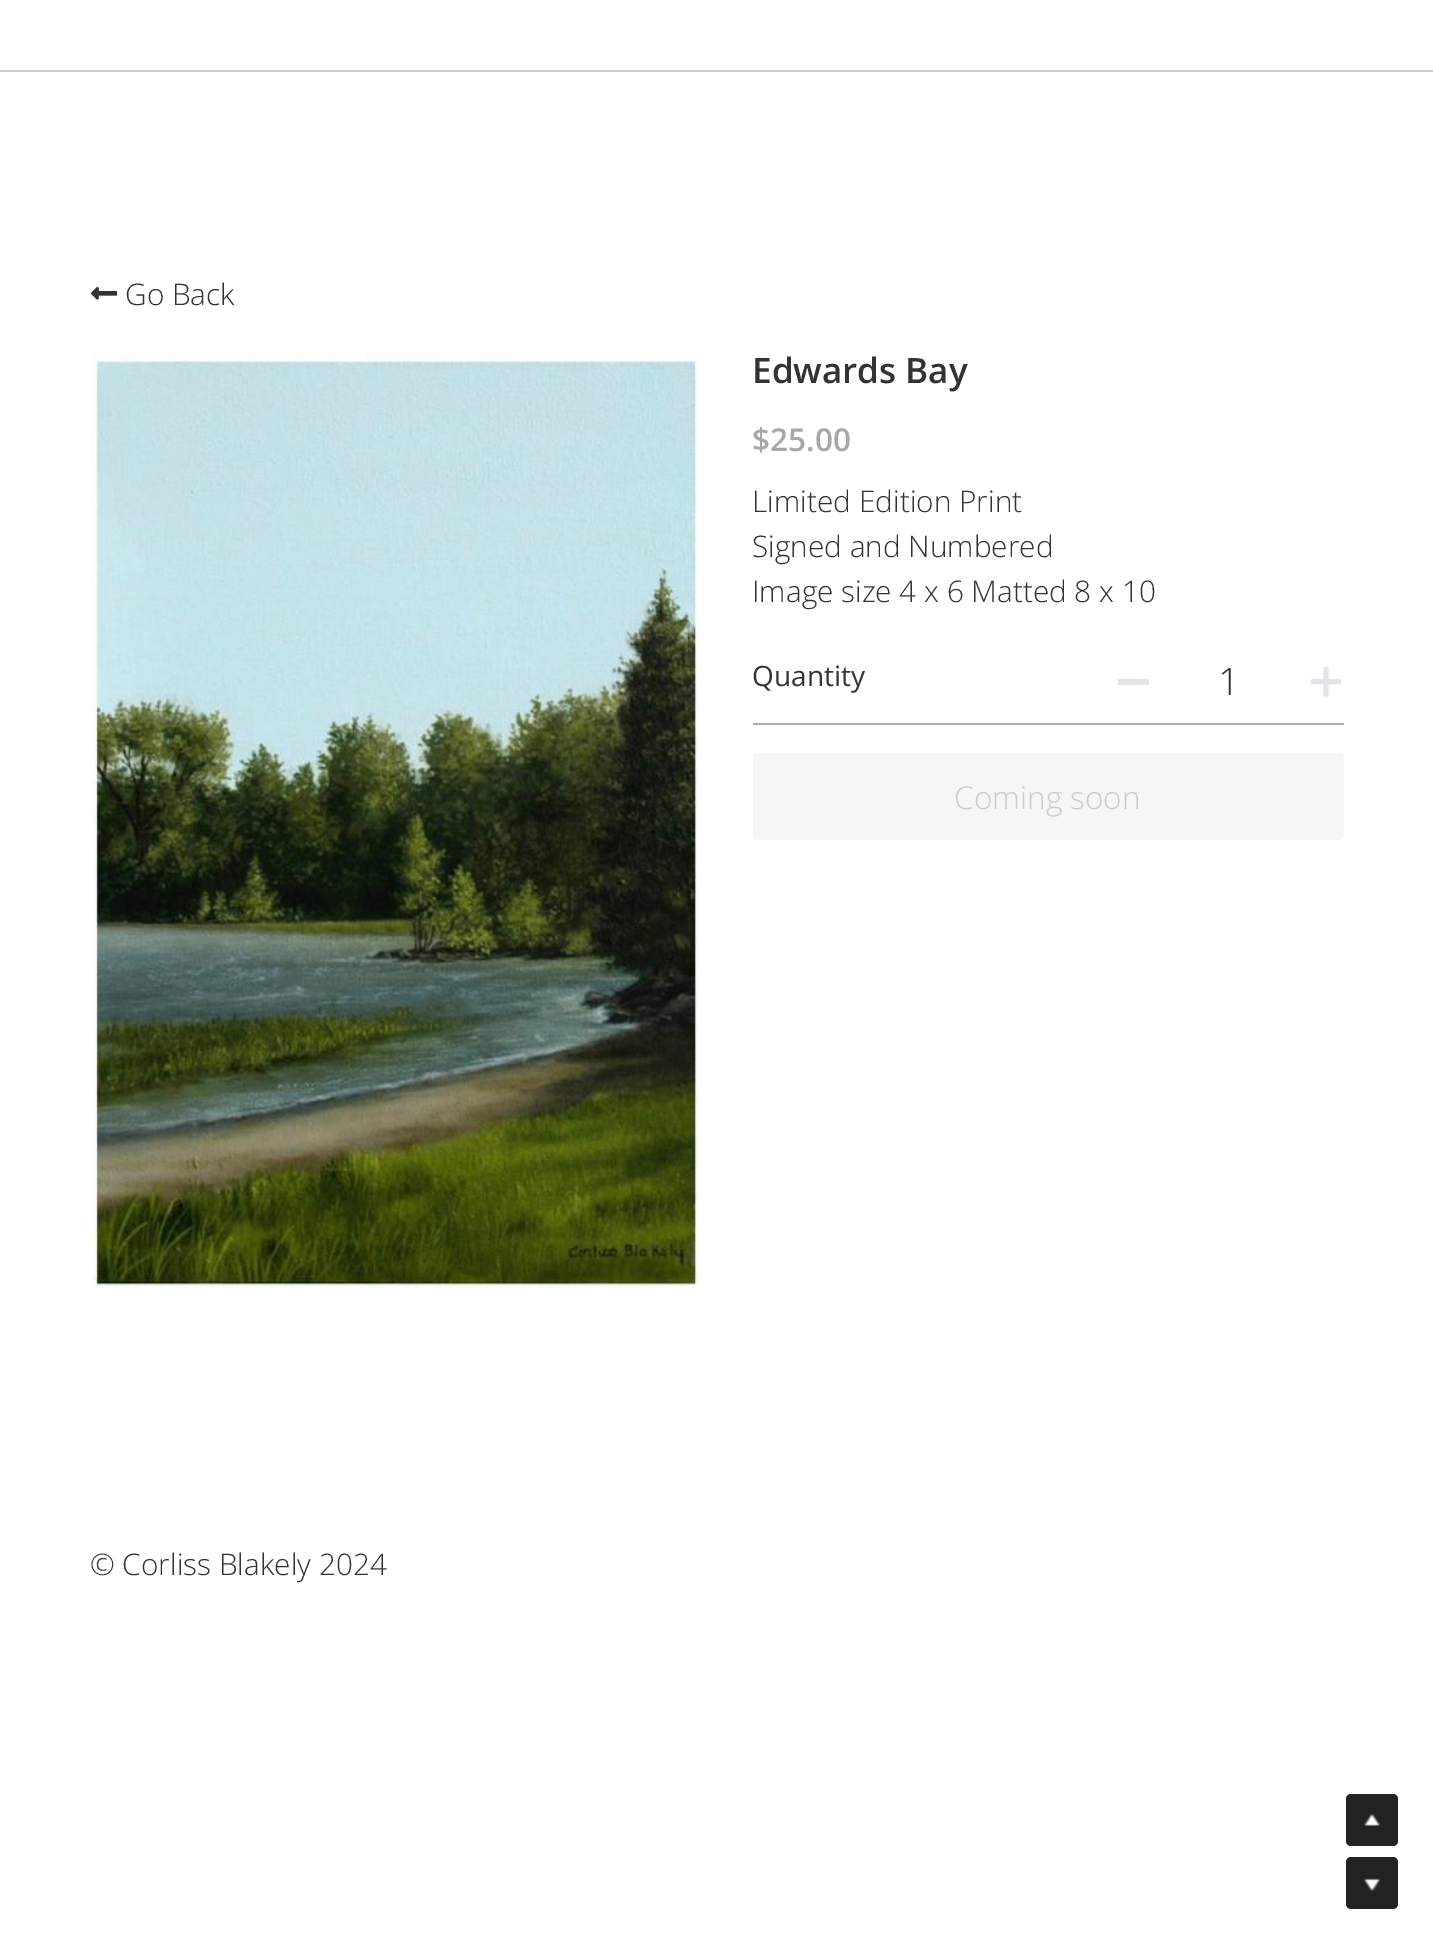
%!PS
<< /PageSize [1433 1943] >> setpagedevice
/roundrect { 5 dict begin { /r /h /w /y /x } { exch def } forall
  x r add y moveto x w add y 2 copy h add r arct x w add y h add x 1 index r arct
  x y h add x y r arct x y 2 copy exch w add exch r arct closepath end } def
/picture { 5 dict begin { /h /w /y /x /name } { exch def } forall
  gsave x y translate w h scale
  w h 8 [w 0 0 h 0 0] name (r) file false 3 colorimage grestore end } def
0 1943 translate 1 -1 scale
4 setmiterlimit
1 setgray
0 0 1433 1943 rectfill
0.8 0.816 0.8 setrgbcolor
0 70 1433 2 rectfill
(img1.rgb) 91 287 27 13 picture
/OpenSans-Light [29.75 0 0 -29.75 0 0] selectfont
0.2 setgray
125 305 moveto (Go Back) show
(img2.rgb) 91 352 609 936 picture
/OpenSans-SemiBold [35 0 0 -35 0 0] selectfont
752 383 moveto (Edwards Bay) show
/OpenSans-SemiBold [31.5 0 0 -31.5 0 0] selectfont
0.659 0.659 0.639 setrgbcolor
752 451 moveto ($25.00) show
/OpenSans-Light [29.75 0 0 -29.75 0 0] selectfont
0.2 setgray
752 512 moveto (Limited Edition Print) show
752 557 moveto (Signed and Numbered) show
752 602 moveto (Image size 4 x 6 Matted 8 x 10) show
0.663 0.682 0.698 setrgbcolor
753 723 591 2 rectfill
/OpenSans-Regular [28 0 0 -28 0 0] selectfont
0.2 setgray
752 686 moveto (Quantity) show
0.886 0.894 0.906 setrgbcolor
1118 679 31 6 rectfill
/OpenSans-Light [38 0 0 -38 0 0] selectfont
0.2 setgray
1218 695 moveto (1) show
(img3.rgb) 1310 666 32 31 picture
0.965 setgray
753 753 591 87 5 roundrect fill
/OpenSans-Light [31.5 0 0 -31.5 0 0] selectfont
0.8 setgray
954 809 moveto (Coming soon) show
/OpenSans-Light [29.75 0 0 -29.75 0 0] selectfont
0.2 setgray
90 1575 moveto (© Corliss Blakely 2024) show
0.133 setgray
1346 1794 52 52 5 roundrect fill
(img4.rgb) 1364 1813 16 13 picture
1346 1857 52 52 5 roundrect fill
(img5.rgb) 1364 1878 16 13 picture
showpage
